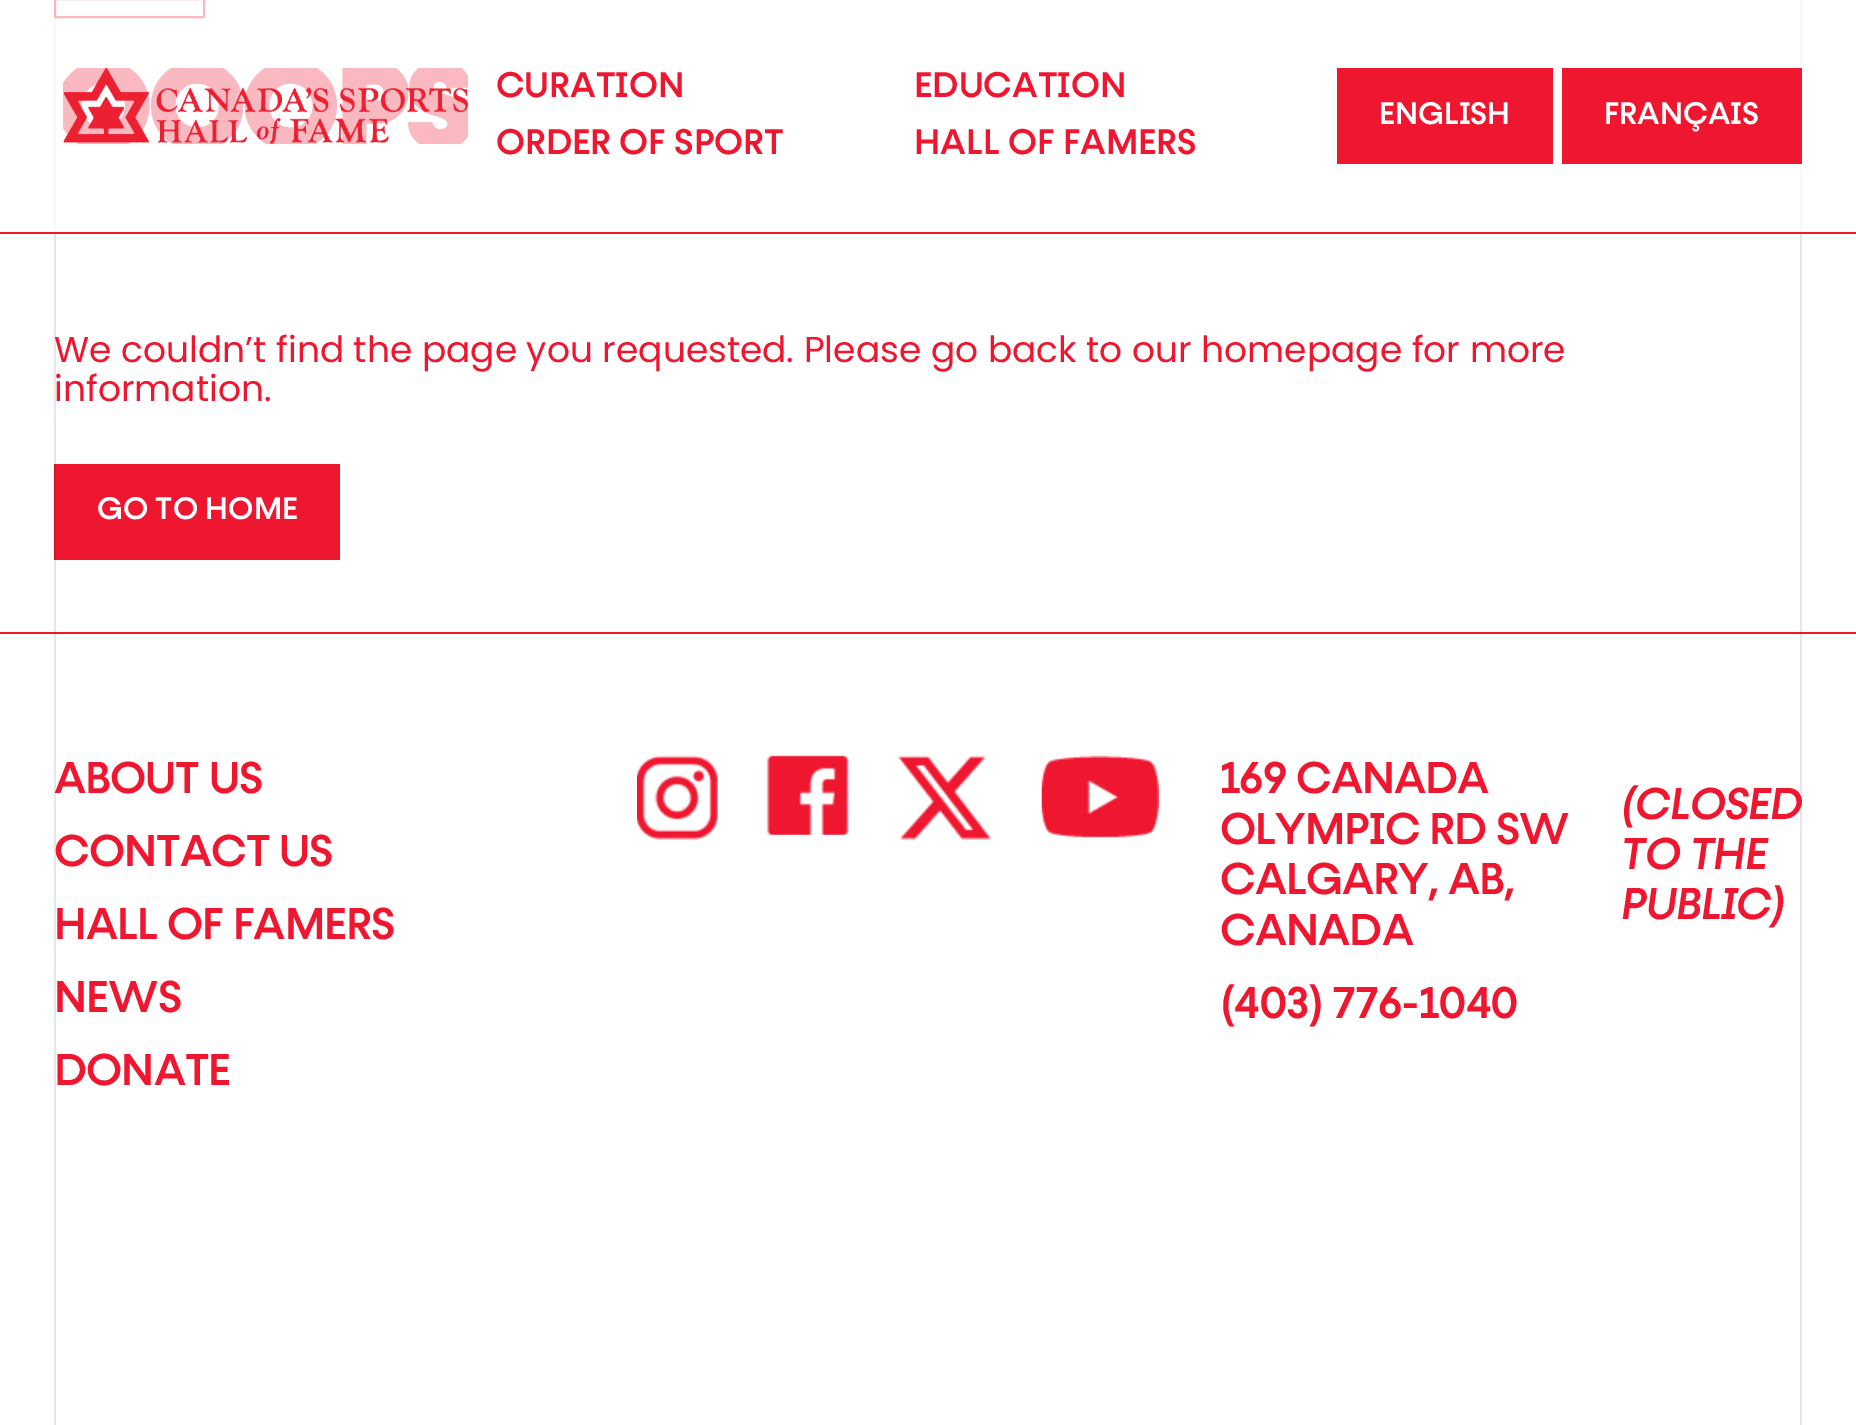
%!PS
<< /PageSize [1856 1425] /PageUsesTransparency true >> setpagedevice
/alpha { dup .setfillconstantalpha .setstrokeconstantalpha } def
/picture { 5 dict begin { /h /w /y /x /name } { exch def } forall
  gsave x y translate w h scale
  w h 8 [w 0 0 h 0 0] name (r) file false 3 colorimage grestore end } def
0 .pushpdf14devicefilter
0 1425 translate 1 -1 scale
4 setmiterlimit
1 setgray
0 0 1856 1425 rectfill
0.937 0.09 0.184 setrgbcolor
2 setlinewidth
55 -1 149 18 rectstroke
54 464 286 96 rectfill
0 632 1856 2 rectfill
0.1 alpha
0 setgray
54 0 2 1425 rectfill
1800 0 2 1425 rectfill
0.7 alpha
1 setgray
54 0 1748 232 rectfill
1 alpha
0.937 0.09 0.184 setrgbcolor
0 232 1856 2 rectfill
(img1.rgb) 63 68 405 76 picture
/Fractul-Medium [36 0 0 -36 0 0] selectfont
496 97 moveto (CURATION) show
496 154 moveto (ORDER OF SPORT) show
914 97 moveto (EDUCATION) show
914 154 moveto (HALL OF FAMERS) show
1337 68 216 96 rectfill
/Fractul-Medium [31.5 0 0 -31.5 0 0] selectfont
1 setgray
1379 124 moveto (ENGLISH) show
0.937 0.09 0.184 setrgbcolor
1562 68 240 96 rectfill
1 setgray
1604 124 moveto (FRANÇAIS) show
/Poppins-Regular [36 0 0 -36 0 0] selectfont
0.937 0.09 0.184 setrgbcolor
54 362 moveto (We couldn’t find the page you requested. Please go back to our homepage for more) show
54 401 moveto (information.) show
/Fractul-Medium [31.5 0 0 -31.5 0 0] selectfont
1 setgray
97 519 moveto (GO TO HOME) show
/Fractul-Medium [45 0 0 -45 0 0] selectfont
0.937 0.09 0.184 setrgbcolor
54 793 moveto -0.9 0 (ABOUT US) ashow
54 866 moveto -0.9 0 (CONTACT US) ashow
54 939 moveto -0.9 0 (HALL OF FAMERS) ashow
54 1012 moveto -0.9 0 (NEWS) ashow
54 1085 moveto -0.9 0 (DONATE) ashow
(img2.rgb) 637 755 81 85 picture
(img3.rgb) 766 755 83 80 picture
(img4.rgb) 898 755 93 85 picture
(img5.rgb) 1041 755 118 83 picture
1220 793 moveto -0.9 0 (169 CANADA) ashow
1220 844 moveto -0.9 0 (OLYMPIC RD SW) ashow
/Fractul-MediumItalic [45 0 0 -45 0 0] selectfont
1621 819 moveto -0.9 0 (\(CLOSED) ashow
1621 869 moveto -0.9 0 (TO THE) ashow
1621 919 moveto -0.9 0 (PUBLIC\)) ashow
/Fractul-Medium [45 0 0 -45 0 0] selectfont
1220 894 moveto -0.9 0 (CALGARY, AB,) ashow
1220 945 moveto -0.9 0 (CANADA) ashow
1220 1018 moveto -0.9 0 (\(403\) 776-1040) ashow
.poppdf14devicefilter showpage
